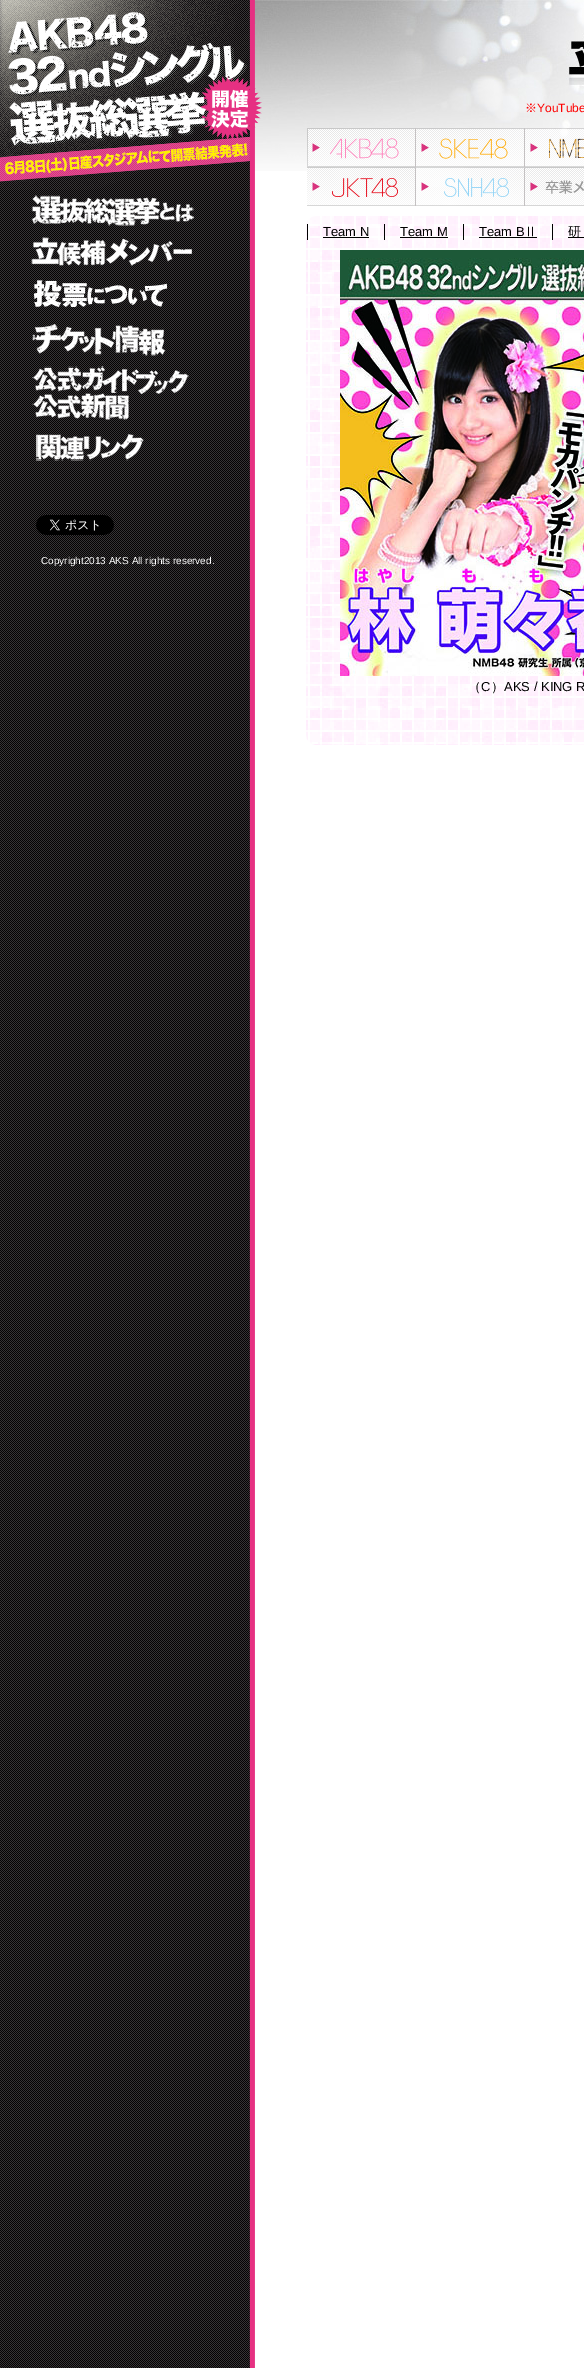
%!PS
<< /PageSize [584 2368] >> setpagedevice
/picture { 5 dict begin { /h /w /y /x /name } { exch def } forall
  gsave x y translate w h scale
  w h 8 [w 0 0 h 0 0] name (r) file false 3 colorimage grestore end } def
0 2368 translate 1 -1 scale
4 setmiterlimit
1 setgray
0 0 584 2368 rectfill
(img1.rgb) 0 745 255 1623 picture
(img2.rgb) 255 161 52 10 picture
(img3.rgb) 255 0 329 161 picture
(img4.rgb) 478 2 106 93 picture
/WenQuanYiZenHei-Medium [12 0 0 -12 0 0] selectfont
1 0 0 setrgbcolor
525 112 moveto (※) show
/LiberationSans-Regular [12 0 0 -12 0 0] selectfont
537 112 moveto (YouTube) show
(img5.rgb) 307 128 109 39 picture
(img6.rgb) 416 128 109 39 picture
(img7.rgb) 525 128 59 39 picture
(img8.rgb) 307 167 109 39 picture
(img9.rgb) 416 167 109 39 picture
(img10.rgb) 525 167 59 39 picture
(img20.rgb) 306 216 278 529 picture
0 setgray
307 224 1 16 rectfill
/LiberationSans-Regular [13 0 0 -13 0 0] selectfont
323 236 moveto (Team N) show
323 237 46 1 rectfill
384 224 1 16 rectfill
400 236 moveto (Team M) show
400 237 48 1 rectfill
463 224 1 16 rectfill
479 236 moveto (Team B) show
479 237 58 1 rectfill
/WenQuanYiZenHei-Medium [13 0 0 -13 0 0] selectfont
524 236 moveto (Ⅱ) show
552 224 1 16 rectfill
568 237 16 1 rectfill
568 236 moveto (研) show
(img19.rgb) 0 0 255 745 picture
(img11.rgb) 0 0 262 190 picture
(img12.rgb) 31 195 163 31 picture
(img13.rgb) 31 237 161 29 picture
(img14.rgb) 34 280 134 27 picture
(img15.rgb) 32 324 134 32 picture
(img16.rgb) 32 366 157 54 picture
(img17.rgb) 36 434 108 27 picture
(img18.rgb) 36 515 78 20 picture
/LiberationSans-Regular [10 0 0 -10 0 0] selectfont
1 setgray
41 564 moveto (Copyright2013 AKS All rights reserved.) show
(img21.rgb) 340 250 244 426 picture
/WenQuanYiZenHei-Medium [13 0 0 -13 0 0] selectfont
0 setgray
468 691 moveto (（) show
/LiberationSans-Regular [13 0 0 -13 0 0] selectfont
481 691 moveto (C) show
/WenQuanYiZenHei-Medium [13 0 0 -13 0 0] selectfont
491 691 moveto (）) show
/LiberationSans-Regular [13 0 0 -13 0 0] selectfont
504 691 moveto (AKS / KING R) show
showpage
